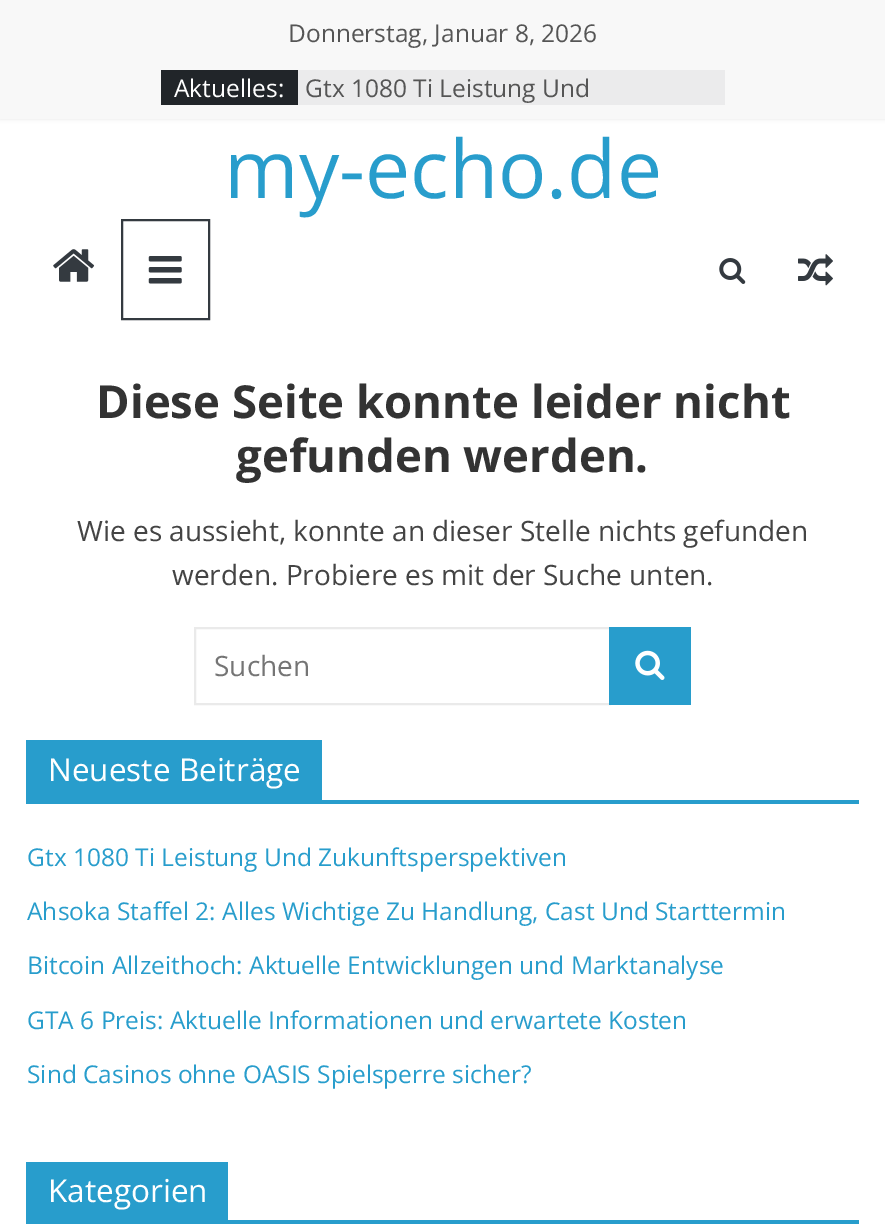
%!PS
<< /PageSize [885 1226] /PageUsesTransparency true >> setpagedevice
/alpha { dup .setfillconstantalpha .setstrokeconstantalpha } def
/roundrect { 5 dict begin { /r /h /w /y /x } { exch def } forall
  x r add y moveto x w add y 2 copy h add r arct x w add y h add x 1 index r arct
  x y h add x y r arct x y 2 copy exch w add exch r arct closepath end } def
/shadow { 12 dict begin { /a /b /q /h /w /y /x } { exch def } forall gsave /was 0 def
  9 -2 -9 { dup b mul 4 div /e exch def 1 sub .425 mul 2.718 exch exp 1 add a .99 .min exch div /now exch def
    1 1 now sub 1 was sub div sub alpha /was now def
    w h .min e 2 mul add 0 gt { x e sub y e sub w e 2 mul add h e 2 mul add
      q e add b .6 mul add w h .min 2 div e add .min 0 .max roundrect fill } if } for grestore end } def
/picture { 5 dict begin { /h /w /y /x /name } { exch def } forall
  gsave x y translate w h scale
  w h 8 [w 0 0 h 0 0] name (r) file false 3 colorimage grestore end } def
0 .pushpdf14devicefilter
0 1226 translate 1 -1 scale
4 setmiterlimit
1 setgray
0 0 885 1226 rectfill
0 setgray
0 0 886 119 0 2 0.1 shadow
0.973 setgray
0 0 885 119 rectfill
/OpenSans-Regular [24.5 0 0 -24.5 0 0] selectfont
0.333 setgray
288 42 moveto (Donnerstag, Januar 8, 2026) show
0.922 0.922 0.925 setrgbcolor
298 70 427 35 rectfill
0.129 0.145 0.161 setrgbcolor
161 70 137 35 rectfill
1 setgray
174 97 moveto (Aktuelles:) show
0.333 setgray
305 97 moveto (Gtx 1080 Ti Leistung Und) show
/OpenSans-Regular [80.5 0 0 -80.5 0 0] selectfont
0.157 0.616 0.8 setrgbcolor
224 198 moveto (my-echo.de) show
(img1.rgb) 53 249 42 33 picture
0.204 0.227 0.251 setrgbcolor
2 setlinewidth
122 220 87 99 rectstroke
(img2.rgb) 148 256 34 28 picture
(img3.rgb) 719 258 27 26 picture
(img4.rgb) 798 254 35 32 picture
/OpenSans-Bold [45.5 0 0 -45.5 0 0] selectfont
0.2 setgray
96 418 moveto (Diese Seite konnte leider nicht) show
236 472 moveto (gefunden werden.) show
/OpenSans-Regular [28 0 0 -28 0 0] selectfont
0.267 setgray
77 541 moveto (Wie es aussieht, konnte an dieser Stelle nichts gefunden) show
172 585 moveto (werden. Probiere es mit der Suche unten.) show
0.918 setgray
195 628 415 76 rectstroke
0.459 setgray
214 676 moveto (Suchen) show
0.157 0.616 0.8 setrgbcolor
609 627 82 78 rectfill
(img5.rgb) 635 650 30 30 picture
26 800 833 4 rectfill
26 740 296 60 rectfill
/OpenSans-Regular [31.5 0 0 -31.5 0 0] selectfont
1 setgray
48 781 moveto (Neueste Beiträge) show
/OpenSans-Regular [24.5 0 0 -24.5 0 0] selectfont
0.157 0.616 0.8 setrgbcolor
27 866 moveto (Gtx 1080 Ti Leistung Und Zukunftsperspektiven) show
27 920 moveto (Ahsoka Staffel 2: Alles Wichtige Zu Handlung, Cast Und Starttermin) show
27 974 moveto (Bitcoin Allzeithoch: Aktuelle Entwicklungen und Marktanalyse) show
27 1029 moveto (GTA 6 Preis: Aktuelle Informationen und erwartete Kosten) show
27 1083 moveto (Sind Casinos ohne OASIS Spielsperre sicher?) show
26 1220 833 4 rectfill
26 1162 202 58 rectfill
/OpenSans-Regular [31.5 0 0 -31.5 0 0] selectfont
1 setgray
48 1202 moveto (Kategorien) show
.poppdf14devicefilter showpage
